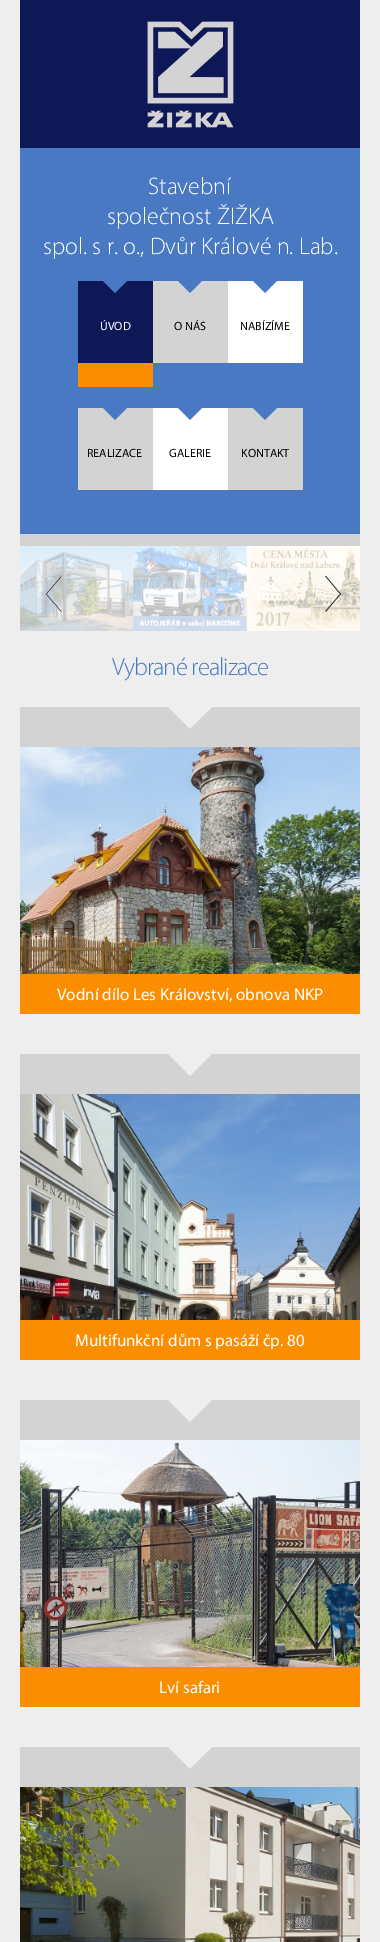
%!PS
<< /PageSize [380 1942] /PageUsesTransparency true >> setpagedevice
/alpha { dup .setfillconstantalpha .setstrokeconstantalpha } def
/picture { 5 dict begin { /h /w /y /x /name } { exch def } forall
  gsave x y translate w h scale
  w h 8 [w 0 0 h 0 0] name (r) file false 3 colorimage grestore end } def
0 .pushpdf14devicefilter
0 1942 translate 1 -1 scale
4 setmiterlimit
0.933 setgray
0 0 380 1942 rectfill
0.282 0.475 0.761 setrgbcolor
20 148 340 386 rectfill
0.827 setgray
20 534 340 12 rectfill
0.059 0.094 0.337 setrgbcolor
20 0 340 148 rectfill
(img1.rgb) 147 21 87 107 picture
/Myriad-Light [24 0 0 -24 0 0] selectfont
1 setgray
148 194 moveto (Stavební) show
107 224 moveto (společnost ŽIŽKA) show
43 254 moveto (spol. s r. o., Dvůr Králové n. Lab.) show
0.059 0.094 0.337 setrgbcolor
78 281 75 82 rectfill
0.98 0.553 0 setrgbcolor
78 363 75 24 rectfill
0.282 0.475 0.761 setrgbcolor
newpath 103 281 moveto 127 281 lineto 115 293 lineto closepath fill
/Myriad-Regular [12 0 0 -12 0 0] selectfont
1 setgray
100 330 moveto (ÚVOD) show
0.827 setgray
153 281 75 82 rectfill
0.282 0.475 0.761 setrgbcolor
newpath 178 281 moveto 202 281 lineto 190 293 lineto closepath fill
0 setgray
174 330 moveto (O NÁS) show
1 setgray
228 281 75 82 rectfill
0.282 0.475 0.761 setrgbcolor
newpath 253 281 moveto 277 281 lineto 265 293 lineto closepath fill
0 setgray
240 330 moveto (NABÍZÍME) show
0.827 setgray
78 408 75 82 rectfill
0.282 0.475 0.761 setrgbcolor
newpath 103 408 moveto 127 408 lineto 115 420 lineto closepath fill
0 setgray
87 457 moveto (REALIZACE) show
1 setgray
153 408 75 82 rectfill
0.282 0.475 0.761 setrgbcolor
newpath 178 408 moveto 202 408 lineto 190 420 lineto closepath fill
0 setgray
169 457 moveto (GALERIE) show
0.827 setgray
228 408 75 82 rectfill
0.282 0.475 0.761 setrgbcolor
newpath 253 408 moveto 277 408 lineto 265 420 lineto closepath fill
0 setgray
241 457 moveto (KONTAKT) show
1 setgray
20 546 340 85 rectfill
(img2.rgb) 20 546 340 85 picture
0.8 alpha
0 setgray
newpath 61.5 576.5 moveto 46.5 594 lineto 61.5 611.5 lineto 61 611.5 lineto 46 594 lineto 61 576.5 lineto closepath fill
newpath 326 611.5 moveto 325 611.5 lineto 340 594 lineto 325 576 lineto 326 576 lineto 341 594 lineto closepath fill
/Myriad-Light [25 0 0 -25 0 0] selectfont
1 alpha
0.282 0.475 0.761 setrgbcolor
112 675 moveto -1 0 (Vybrané realizace) ashow
0.827 setgray
20 707 340 40 rectfill
0.933 setgray
newpath 168 707 moveto 212 707 lineto 190 729 lineto closepath fill
(img3.rgb) 20 747 340 227 picture
0.98 0.553 0 setrgbcolor
20 974 340 40 rectfill
/Myriad-Regular [17 0 0 -17 0 0] selectfont
1 setgray
57 1000 moveto (Vodní dílo Les Království, obnova NKP) show
0.827 setgray
20 1054 340 40 rectfill
0.933 setgray
newpath 168 1054 moveto 212 1054 lineto 190 1076 lineto closepath fill
(img4.rgb) 20 1094 340 226 picture
0.98 0.553 0 setrgbcolor
20 1320 340 40 rectfill
1 setgray
75 1346 moveto (Multifunkční dům s pasáží čp. 80) show
0.827 setgray
20 1400 340 40 rectfill
0.933 setgray
newpath 168 1400 moveto 212 1400 lineto 190 1422 lineto closepath fill
(img5.rgb) 20 1440 340 227 picture
0.98 0.553 0 setrgbcolor
20 1667 340 40 rectfill
1 setgray
159 1693 moveto (Lví safari) show
0.827 setgray
20 1747 340 40 rectfill
0.933 setgray
newpath 168 1747 moveto 212 1747 lineto 190 1769 lineto closepath fill
(img6.rgb) 20 1787 340 155 picture
.poppdf14devicefilter showpage
